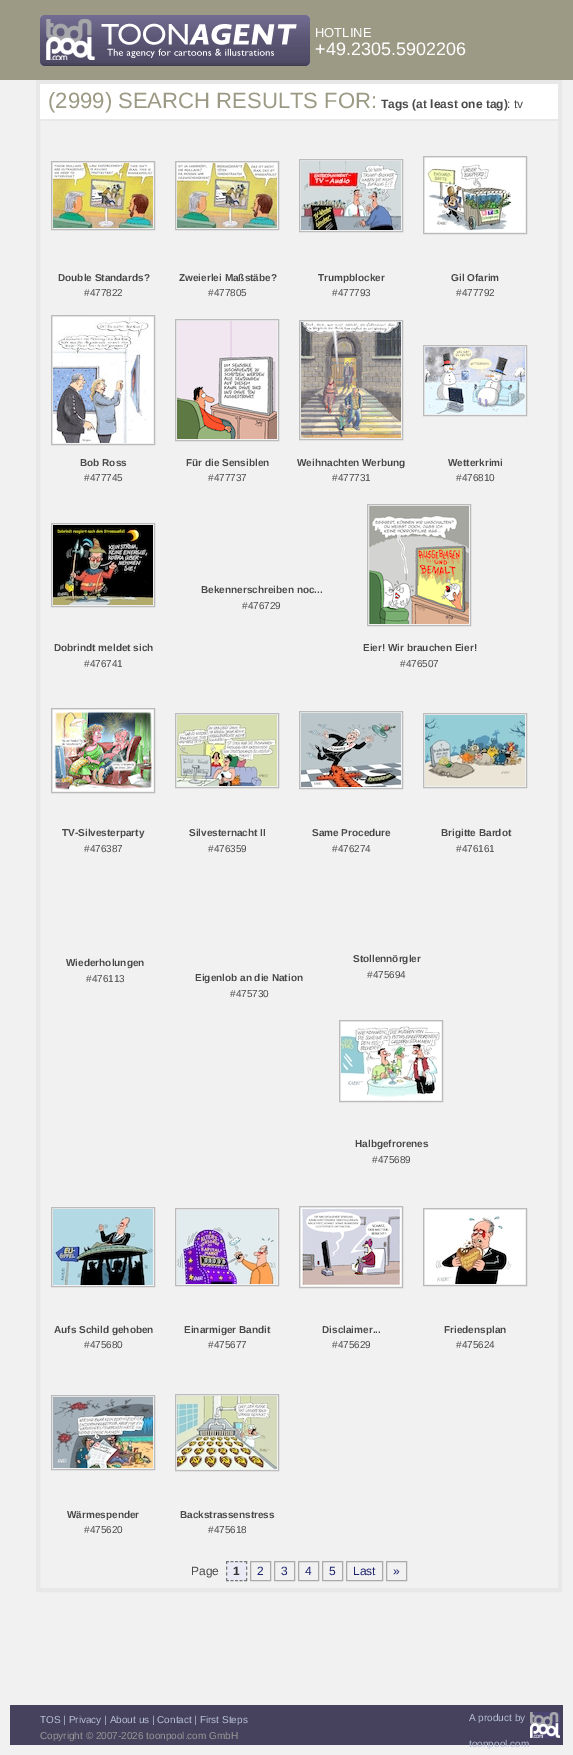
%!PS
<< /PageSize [573 1755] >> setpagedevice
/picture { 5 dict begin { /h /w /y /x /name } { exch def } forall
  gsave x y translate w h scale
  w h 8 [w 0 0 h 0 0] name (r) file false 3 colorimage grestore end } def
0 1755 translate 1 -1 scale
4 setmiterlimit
0.945 setgray
0 0 573 1755 rectfill
0.612 0.6 0.518 setrgbcolor
0 0 573 80 rectfill
(img1.rgb) 40 15 270 51 picture
/LiberationSans-Regular [13 0 0 -13 0 0] selectfont
1 setgray
315 37 moveto (HOTLINE) show
/LiberationSans-Regular [18 0 0 -18 0 0] selectfont
315 55 moveto (+49.2305.5902206) show
0.91 setgray
4 setlinewidth
38 82 522 1508 rectstroke
1 setgray
40 84 518 35 rectfill
/LiberationSans-Regular [22.1 0 0 -22.1 0 0] selectfont
0.612 0.6 0.518 setrgbcolor
48 108 moveto (\(2999\) SEARCH RESULTS FOR:) show
/LiberationSans-Bold [12 0 0 -12 0 0] selectfont
0.286 setgray
381 108 moveto (Tags \(at least one tag\)) show
/LiberationSans-Regular [12 0 0 -12 0 0] selectfont
507 108 moveto (: tv) show
0.91 setgray
40 119 518 2 rectfill
0.733 setgray
1 setlinewidth
51.5 161.5 103 68 rectstroke
(img2.rgb) 53 163 100 65 picture
/LiberationSans-Bold [10 0 0 -10 0 0] selectfont
0.286 setgray
58 281 moveto (Double Standards?) show
/LiberationSans-Regular [10 0 0 -10 0 0] selectfont
84 296 moveto (#477822) show
0.733 setgray
175.5 161.5 103 68 rectstroke
(img3.rgb) 177 163 100 65 picture
/LiberationSans-Bold [10 0 0 -10 0 0] selectfont
0.286 setgray
179 281 moveto (Zweierlei Maßstäbe?) show
/LiberationSans-Regular [10 0 0 -10 0 0] selectfont
208 296 moveto (#477805) show
0.733 setgray
299.5 159.5 103 72 rectstroke
(img4.rgb) 301 161 100 69 picture
/LiberationSans-Bold [10 0 0 -10 0 0] selectfont
0.286 setgray
318 281 moveto (Trumpblocker) show
/LiberationSans-Regular [10 0 0 -10 0 0] selectfont
332 296 moveto (#477793) show
0.733 setgray
423.5 156.5 103 77 rectstroke
(img5.rgb) 425 158 100 74 picture
/LiberationSans-Bold [10 0 0 -10 0 0] selectfont
0.286 setgray
451 281 moveto (Gil Ofarim) show
/LiberationSans-Regular [10 0 0 -10 0 0] selectfont
456 296 moveto (#477792) show
0.733 setgray
51.5 315.5 103 129 rectstroke
(img6.rgb) 53 317 100 126 picture
/LiberationSans-Bold [10 0 0 -10 0 0] selectfont
0.286 setgray
80 466 moveto (Bob Ross) show
/LiberationSans-Regular [10 0 0 -10 0 0] selectfont
84 481 moveto (#477745) show
0.733 setgray
175.5 319.5 103 121 rectstroke
(img7.rgb) 177 321 100 118 picture
/LiberationSans-Bold [10 0 0 -10 0 0] selectfont
0.286 setgray
186 466 moveto (Für die Sensiblen) show
/LiberationSans-Regular [10 0 0 -10 0 0] selectfont
208 481 moveto (#477737) show
0.733 setgray
299.5 320.5 103 119 rectstroke
(img8.rgb) 301 322 100 116 picture
/LiberationSans-Bold [10 0 0 -10 0 0] selectfont
0.286 setgray
297 466 moveto (Weihnachten Werbung) show
/LiberationSans-Regular [10 0 0 -10 0 0] selectfont
332 481 moveto (#477731) show
0.733 setgray
423.5 345.5 103 70 rectstroke
(img9.rgb) 425 347 100 67 picture
/LiberationSans-Bold [10 0 0 -10 0 0] selectfont
0.286 setgray
448 466 moveto (Wetterkrimi) show
/LiberationSans-Regular [10 0 0 -10 0 0] selectfont
456 481 moveto (#476810) show
/LiberationSans-Bold [10 0 0 -10 0 0] selectfont
201 593 moveto (Bekennerschreiben noc...) show
/LiberationSans-Regular [10 0 0 -10 0 0] selectfont
242 609 moveto (#476729) show
0.733 setgray
51.5 523.5 103 83 rectstroke
(img10.rgb) 53 525 100 80 picture
/LiberationSans-Bold [10 0 0 -10 0 0] selectfont
0.286 setgray
54 651 moveto (Dobrindt meldet sich) show
/LiberationSans-Regular [10 0 0 -10 0 0] selectfont
84 667 moveto (#476741) show
0.733 setgray
367.5 504.5 103 121 rectstroke
(img11.rgb) 369 506 100 118 picture
/LiberationSans-Bold [10 0 0 -10 0 0] selectfont
0.286 setgray
363 651 moveto (Eier! Wir brauchen Eier!) show
/LiberationSans-Regular [10 0 0 -10 0 0] selectfont
400 667 moveto (#476507) show
0.733 setgray
51.5 708.5 103 84 rectstroke
(img12.rgb) 53 710 100 81 picture
/LiberationSans-Bold [10 0 0 -10 0 0] selectfont
0.286 setgray
62 836 moveto (TV-Silvesterparty) show
/LiberationSans-Regular [10 0 0 -10 0 0] selectfont
84 852 moveto (#476387) show
0.733 setgray
175.5 713.5 103 74 rectstroke
(img13.rgb) 177 715 100 71 picture
/LiberationSans-Bold [10 0 0 -10 0 0] selectfont
0.286 setgray
189 836 moveto (Silvesternacht II) show
/LiberationSans-Regular [10 0 0 -10 0 0] selectfont
208 852 moveto (#476359) show
0.733 setgray
299.5 711.5 103 77 rectstroke
(img14.rgb) 301 713 100 74 picture
/LiberationSans-Bold [10 0 0 -10 0 0] selectfont
0.286 setgray
312 836 moveto (Same Procedure) show
/LiberationSans-Regular [10 0 0 -10 0 0] selectfont
332 852 moveto (#476274) show
0.733 setgray
423.5 713.5 103 74 rectstroke
(img15.rgb) 425 715 100 71 picture
/LiberationSans-Bold [10 0 0 -10 0 0] selectfont
0.286 setgray
441 836 moveto (Brigitte Bardot) show
/LiberationSans-Regular [10 0 0 -10 0 0] selectfont
456 852 moveto (#476161) show
/LiberationSans-Bold [10 0 0 -10 0 0] selectfont
66 966 moveto (Wiederholungen) show
/LiberationSans-Regular [10 0 0 -10 0 0] selectfont
86 982 moveto (#476113) show
/LiberationSans-Bold [10 0 0 -10 0 0] selectfont
353 962 moveto (Stollennörgler) show
/LiberationSans-Regular [10 0 0 -10 0 0] selectfont
367 978 moveto (#475694) show
/LiberationSans-Bold [10 0 0 -10 0 0] selectfont
195 981 moveto (Eigenlob an die Nation) show
/LiberationSans-Regular [10 0 0 -10 0 0] selectfont
230 997 moveto (#475730) show
0.733 setgray
339.5 1020.5 103 81 rectstroke
(img16.rgb) 341 1022 100 78 picture
/LiberationSans-Bold [10 0 0 -10 0 0] selectfont
0.286 setgray
355 1147 moveto (Halbgefrorenes) show
/LiberationSans-Regular [10 0 0 -10 0 0] selectfont
372 1163 moveto (#475689) show
0.733 setgray
51.5 1207.5 103 79 rectstroke
(img17.rgb) 53 1209 100 76 picture
/LiberationSans-Bold [10 0 0 -10 0 0] selectfont
0.286 setgray
54 1333 moveto (Aufs Schild gehoben) show
/LiberationSans-Regular [10 0 0 -10 0 0] selectfont
84 1348 moveto (#475680) show
0.733 setgray
175.5 1208.5 103 77 rectstroke
(img18.rgb) 177 1210 100 74 picture
/LiberationSans-Bold [10 0 0 -10 0 0] selectfont
0.286 setgray
184 1333 moveto (Einarmiger Bandit) show
/LiberationSans-Regular [10 0 0 -10 0 0] selectfont
208 1348 moveto (#475677) show
0.733 setgray
299.5 1206.5 103 81 rectstroke
(img19.rgb) 301 1208 100 78 picture
/LiberationSans-Bold [10 0 0 -10 0 0] selectfont
0.286 setgray
322 1333 moveto (Disclaimer...) show
/LiberationSans-Regular [10 0 0 -10 0 0] selectfont
332 1348 moveto (#475629) show
0.733 setgray
423.5 1208.5 103 77 rectstroke
(img20.rgb) 425 1210 100 74 picture
/LiberationSans-Bold [10 0 0 -10 0 0] selectfont
0.286 setgray
444 1333 moveto (Friedensplan) show
/LiberationSans-Regular [10 0 0 -10 0 0] selectfont
456 1348 moveto (#475624) show
0.733 setgray
51.5 1395.5 103 74 rectstroke
(img21.rgb) 53 1397 100 71 picture
/LiberationSans-Bold [10 0 0 -10 0 0] selectfont
0.286 setgray
67 1518 moveto (Wärmespender) show
/LiberationSans-Regular [10 0 0 -10 0 0] selectfont
84 1533 moveto (#475620) show
0.733 setgray
175.5 1394.5 103 76 rectstroke
(img22.rgb) 177 1396 100 73 picture
/LiberationSans-Bold [10 0 0 -10 0 0] selectfont
0.286 setgray
180 1518 moveto (Backstrassenstress) show
/LiberationSans-Regular [10 0 0 -10 0 0] selectfont
208 1533 moveto (#475618) show
/LiberationSans-Regular [12 0 0 -12 0 0] selectfont
191 1575 moveto (Page) show
0.914 0.918 0.961 setrgbcolor
226 1561 21 20 rectfill
/LiberationSans-Bold [12 0 0 -12 0 0] selectfont
0.2 setgray
233 1575 moveto (1) show
0.467 setgray
[3 1.5] 0 setdash
newpath 226 1561.5 moveto 247 1561.5 lineto stroke
[3 2.67] 0 setdash
newpath 246.5 1561 moveto 246.5 1581 lineto stroke
[3 1.5] 0 setdash
newpath 226 1580.5 moveto 247 1580.5 lineto stroke
[3 2.67] 0 setdash
newpath 226.5 1561 moveto 226.5 1581 lineto stroke
0.667 setgray
[] 0 setdash
250.5 1561.5 20 19 rectstroke
/LiberationSans-Regular [12 0 0 -12 0 0] selectfont
0.114 0.141 0.424 setrgbcolor
257 1575 moveto (2) show
0.667 setgray
274.5 1561.5 20 19 rectstroke
0.114 0.141 0.424 setrgbcolor
281 1575 moveto (3) show
0.667 setgray
298.5 1561.5 20 19 rectstroke
0.114 0.141 0.424 setrgbcolor
305 1575 moveto (4) show
0.667 setgray
322.5 1561.5 20 19 rectstroke
0.114 0.141 0.424 setrgbcolor
329 1575 moveto (5) show
0.667 setgray
346.5 1561.5 36 19 rectstroke
0.114 0.141 0.424 setrgbcolor
353 1575 moveto (Last) show
0.667 setgray
386.5 1561.5 20 19 rectstroke
0.114 0.141 0.424 setrgbcolor
393 1575 moveto (») show
0.275 0.255 0.361 setrgbcolor
10 1705 553 40 rectfill
/LiberationSans-Regular [10 0 0 -10 0 0] selectfont
0.714 0.761 0.847 setrgbcolor
40 1723 moveto (TOS | Privacy | About us | Contact | First Steps) show
0.6 setgray
40 1739 moveto (Copyright © 2007-2026 toonpool.com GmbH) show
0.714 0.761 0.847 setrgbcolor
469 1721 moveto (A product by) show
(img23.rgb) 530 1712 30 26 picture
469 1747 moveto (toonpool.com) show
showpage
